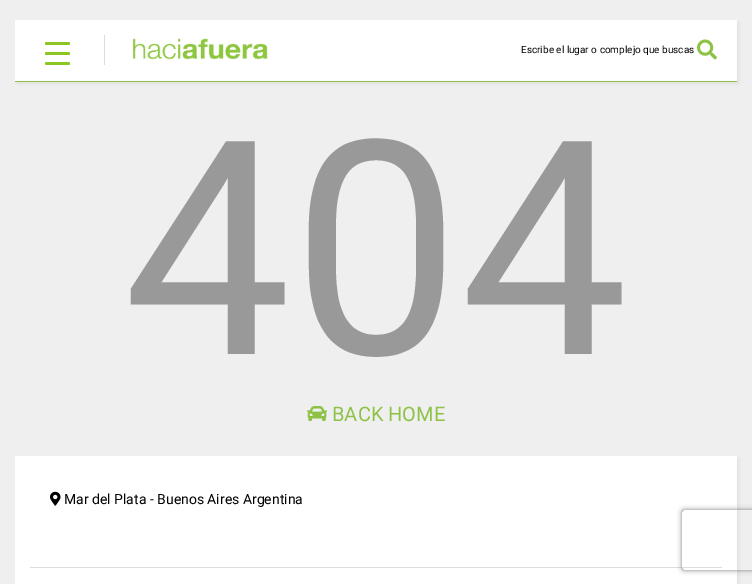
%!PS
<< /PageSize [752 584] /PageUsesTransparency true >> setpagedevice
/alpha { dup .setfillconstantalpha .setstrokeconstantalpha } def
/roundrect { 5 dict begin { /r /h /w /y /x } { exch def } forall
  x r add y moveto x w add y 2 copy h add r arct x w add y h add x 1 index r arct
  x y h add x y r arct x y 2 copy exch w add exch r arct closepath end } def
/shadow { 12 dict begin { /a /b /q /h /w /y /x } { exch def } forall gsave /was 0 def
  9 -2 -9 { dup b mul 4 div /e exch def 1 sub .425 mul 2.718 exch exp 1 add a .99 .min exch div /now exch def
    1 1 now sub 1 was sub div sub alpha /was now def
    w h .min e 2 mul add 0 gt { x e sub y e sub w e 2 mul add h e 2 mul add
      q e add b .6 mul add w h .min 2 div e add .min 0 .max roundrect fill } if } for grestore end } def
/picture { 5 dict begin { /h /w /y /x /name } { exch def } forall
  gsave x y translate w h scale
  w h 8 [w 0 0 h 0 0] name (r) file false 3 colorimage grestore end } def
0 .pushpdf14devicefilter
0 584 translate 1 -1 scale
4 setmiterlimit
0.937 setgray
0 0 752 584 rectfill
0 setgray
17 22 722 62 0 1.5 0.05 shadow
1 setgray
15 20 722 61 rectfill
0.549 0.78 0.129 setrgbcolor
45 52 25 3 1.5 roundrect fill
45 42 25 3 1.5 roundrect fill
45 62 25 3 1.5 roundrect fill
0.867 setgray
104 35 1 30 rectfill
(img1.rgb) 132 38 136 22 picture
/Roboto-Regular [10 0 0 -10 0 0] selectfont
0 setgray
521 53 moveto (Escribe el lugar o complejo que buscas) show
(img2.rgb) 697 39 20 21 picture
0.557 0.761 0.278 setrgbcolor
15 81 722 1 rectfill
/Roboto-Regular [300 0 0 -300 0 0] selectfont
0.6 setgray
123 354 moveto (404) show
(img3.rgb) 307 406 20 15 picture
/Roboto-Regular [20 0 0 -20 0 0] selectfont
0.557 0.761 0.278 setrgbcolor
332 421 moveto (BACK HOME) show
0 setgray
17 458 722 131 0 1.5 0.05 shadow
1 setgray
15 456 722 128 rectfill
(img4.rgb) 50 491 11 15 picture
/Roboto-Regular [14 0 0 -14 0 0] selectfont
0 setgray
64 504 moveto (Mar del Plata - Buenos Aires Argentina) show
0.867 setgray
30 567 692 1 rectfill
gsave
newpath 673 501 moveto 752 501 lineto 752 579 lineto 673 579 lineto closepath 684 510 moveto 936 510 lineto 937 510 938 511 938 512 curveto 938 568 lineto 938 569 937 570 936 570 curveto 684 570 lineto 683 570 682 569 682 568 curveto 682 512 lineto 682 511 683 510 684 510 curveto closepath eoclip newpath
0.502 setgray
682 510 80 60 2 2.5 1 shadow
grestore
.poppdf14devicefilter showpage
